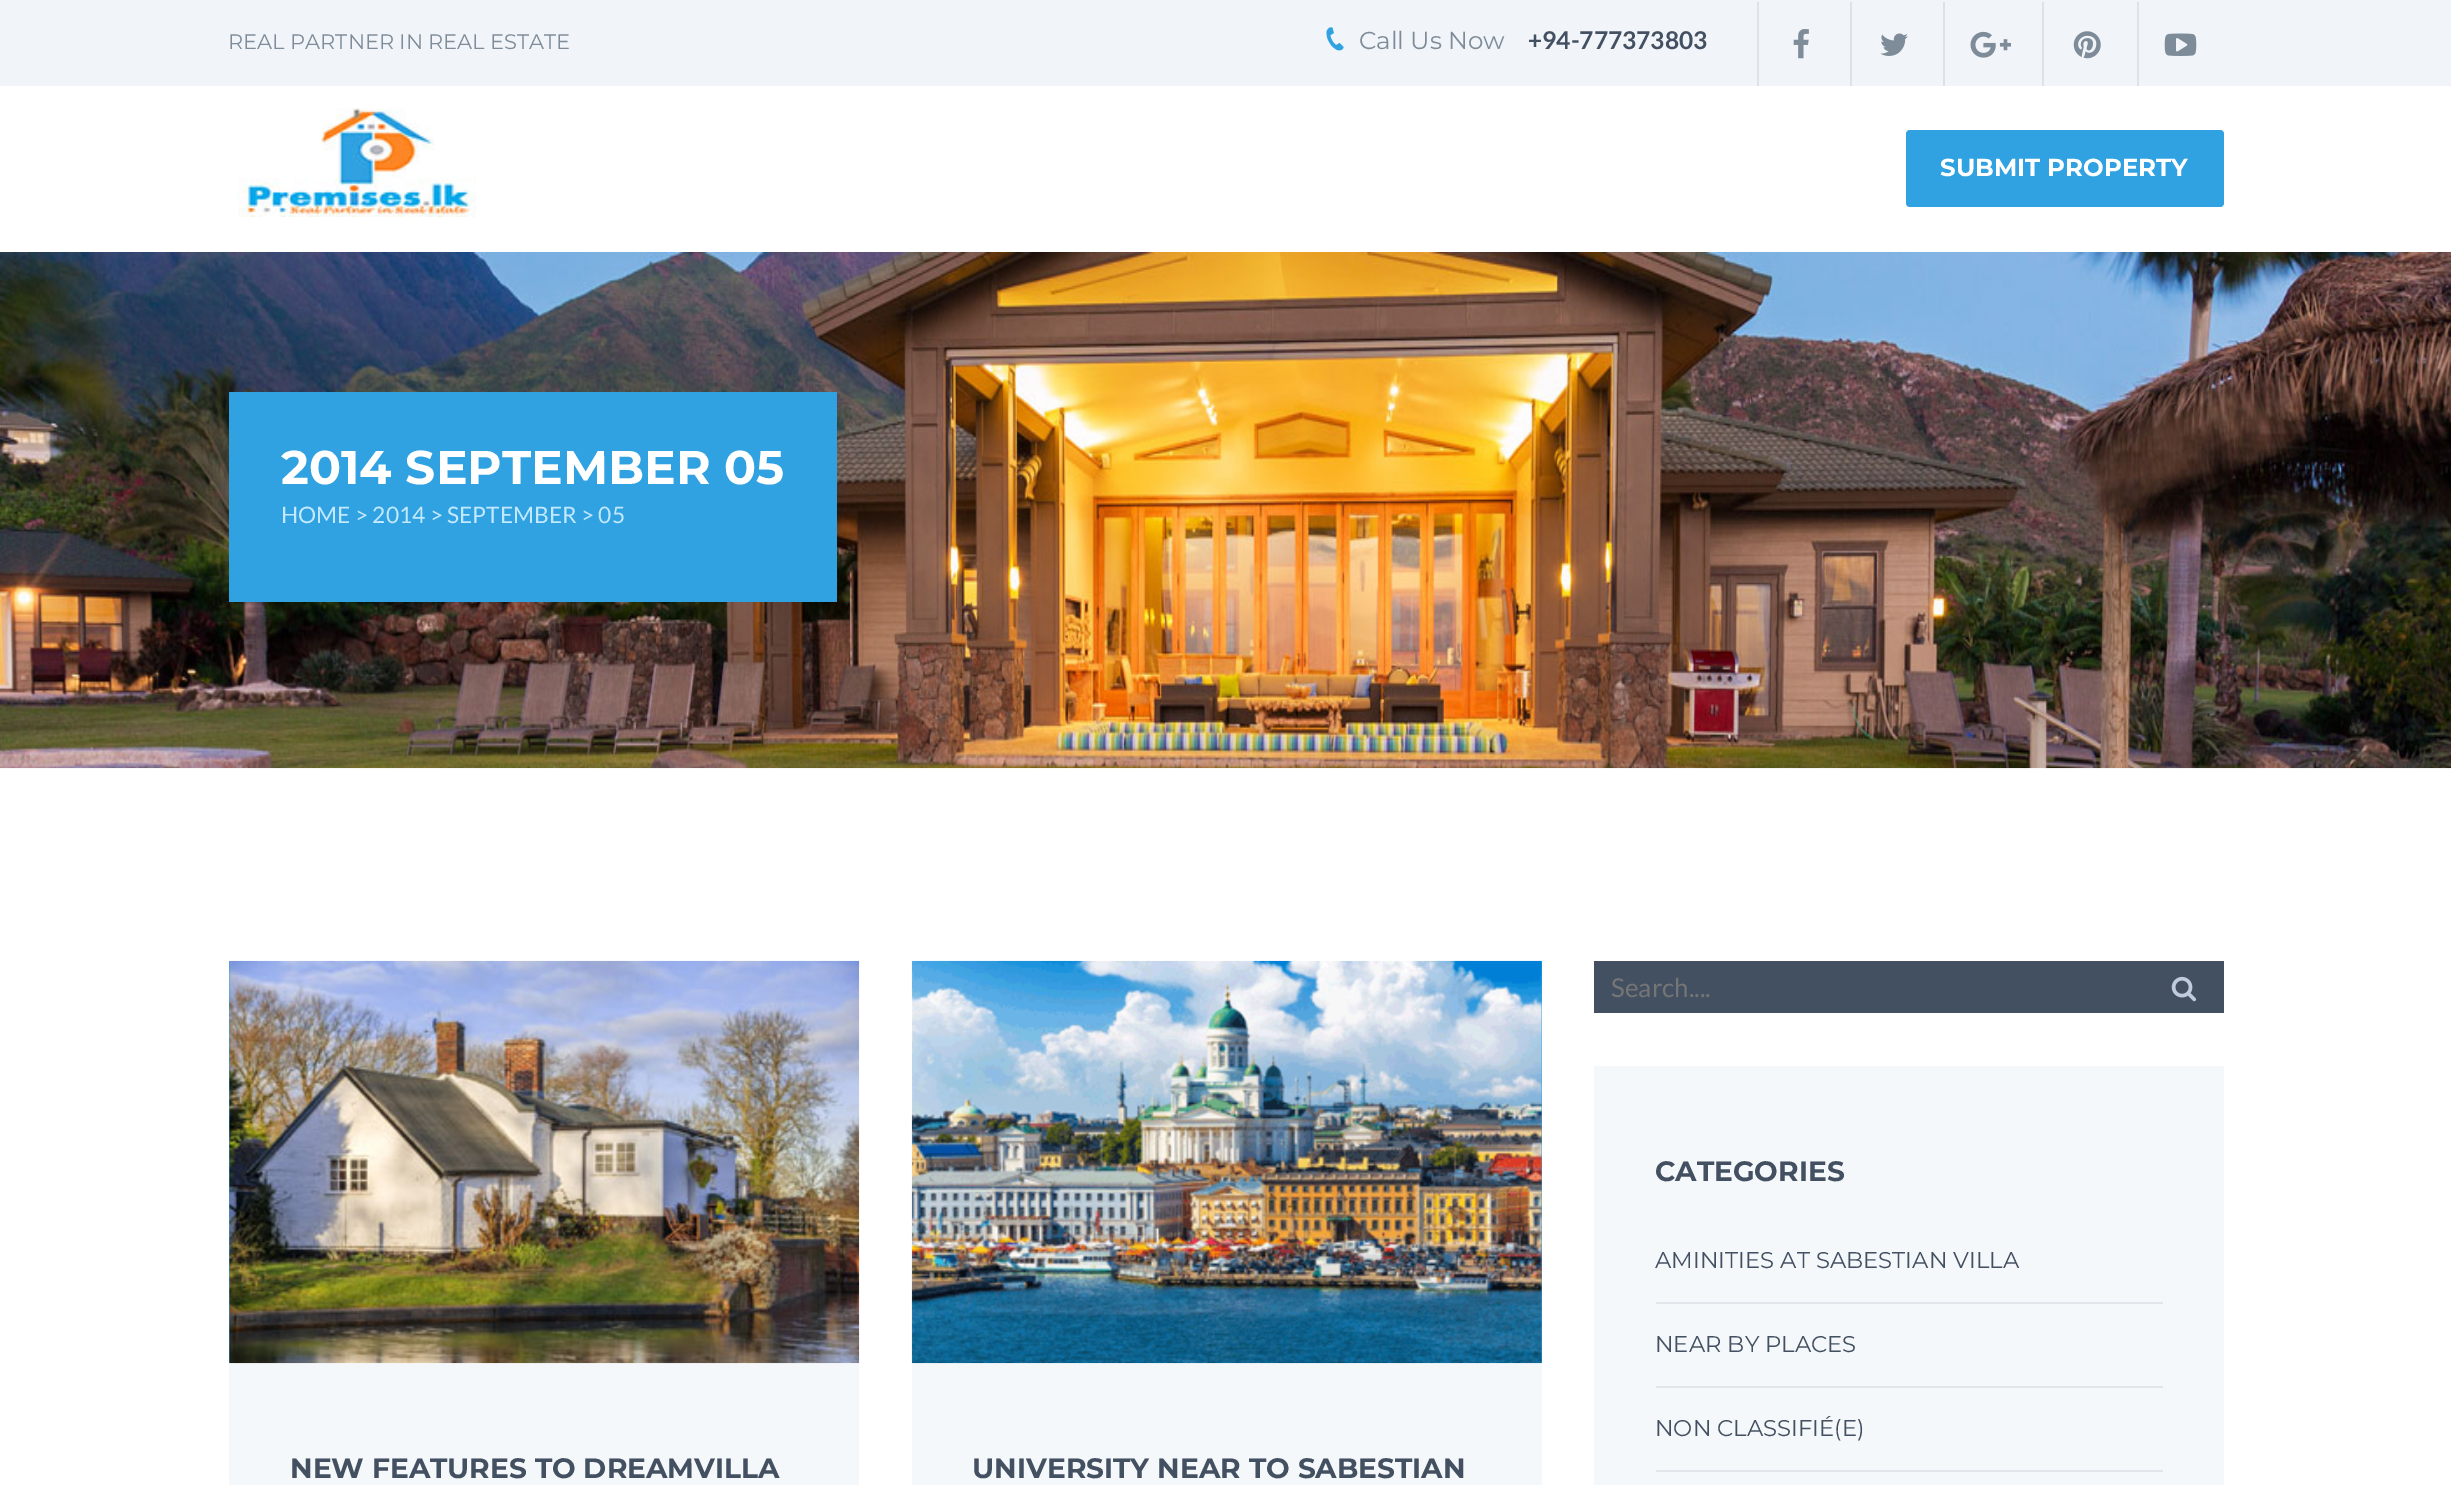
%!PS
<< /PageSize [2451 1485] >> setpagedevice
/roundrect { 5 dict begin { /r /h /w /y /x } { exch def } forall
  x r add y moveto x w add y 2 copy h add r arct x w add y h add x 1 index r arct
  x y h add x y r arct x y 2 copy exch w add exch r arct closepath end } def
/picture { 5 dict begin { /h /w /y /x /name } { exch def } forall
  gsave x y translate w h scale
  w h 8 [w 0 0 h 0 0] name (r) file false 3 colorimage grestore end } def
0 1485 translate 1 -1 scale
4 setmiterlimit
1 setgray
0 0 2451 1485 rectfill
0.945 0.957 0.973 setrgbcolor
0 0 2451 86 rectfill
/Montserrat-Regular [21 0 0 -21 0 0] selectfont
0.494 0.549 0.6 setrgbcolor
228 49 moveto (REAL PARTNER IN REAL ESTATE) show
(img1.rgb) 1326 27 18 24 picture
/Montserrat-Regular [24.5 0 0 -24.5 0 0] selectfont
1359 49 moveto (Call Us Now) show
/Lato-Bold [24.5 0 0 -24.5 0 0] selectfont
0.263 0.314 0.38 setrgbcolor
1528 49 moveto (+94-777373803) show
0.867 0.886 0.91 setrgbcolor
1757 2 2 84 rectfill
(img2.rgb) 1793 29 16 30 picture
1850 2 2 84 rectfill
(img3.rgb) 1880 33 28 23 picture
1943 2 2 84 rectfill
(img4.rgb) 1970 31 41 27 picture
2042 2 2 84 rectfill
(img5.rgb) 2073 31 28 28 picture
2137 2 2 84 rectfill
(img6.rgb) 2164 33 33 23 picture
(img7.rgb) 238 108 238 109 picture
0.192 0.635 0.882 setrgbcolor
1906 130 318 77 4 roundrect fill
/Montserrat-Bold [24.5 0 0 -24.5 0 0] selectfont
1 setgray
1940 176 moveto (SUBMIT PROPERTY) show
(img8.rgb) 0 252 2451 517 picture
0.192 0.635 0.882 setrgbcolor
229 392 608 210 rectfill
/Montserrat-Bold [47.25 0 0 -47.25 0 0] selectfont
1 setgray
281 484 moveto (2014 SEPTEMBER 05) show
/Lato-Regular [22.75 0 0 -22.75 0 0] selectfont
0.761 0.914 1 setrgbcolor
281 523 moveto (HOME > 2014 > SEPTEMBER > 05) show
0.263 0.314 0.38 setrgbcolor
1594 961 630 52 rectfill
/Lato-Regular [26 0 0 -26 0 0] selectfont
0.459 setgray
1611 997 moveto (Search....) show
(img9.rgb) 2171 976 26 26 picture
0.961 0.973 0.98 setrgbcolor
1594 1066 630 419 rectfill
/Montserrat-Bold [28 0 0 -28 0 0] selectfont
0.263 0.314 0.38 setrgbcolor
1655 1181 moveto (CATEGORIES) show
0.882 0.902 0.925 setrgbcolor
1656 1302 507 2 rectfill
/Montserrat-Regular [22.75 0 0 -22.75 0 0] selectfont
0.263 0.314 0.38 setrgbcolor
1655 1268 moveto (AMINITIES AT SABESTIAN VILLA) show
0.882 0.902 0.925 setrgbcolor
1656 1386 507 2 rectfill
0.263 0.314 0.38 setrgbcolor
1655 1352 moveto (NEAR BY PLACES) show
0.882 0.902 0.925 setrgbcolor
1656 1470 507 2 rectfill
0.263 0.314 0.38 setrgbcolor
1655 1436 moveto (NON CLASSIFIÉ\(E\)) show
0.192 0.635 0.882 setrgbcolor
229 961 1 402 rectfill
0.961 0.973 0.98 setrgbcolor
229 1363 630 122 rectfill
(img10.rgb) 229 960 631 404 picture
/Montserrat-Bold [28 0 0 -28 0 0] selectfont
0.263 0.314 0.38 setrgbcolor
290 1478 moveto (NEW FEATURES TO DREAMVILLA) show
0.192 0.635 0.882 setrgbcolor
1541 961 1 402 rectfill
0.961 0.973 0.98 setrgbcolor
912 1363 630 122 rectfill
(img11.rgb) 911 960 631 404 picture
0.263 0.314 0.38 setrgbcolor
972 1478 moveto (UNIVERSITY NEAR TO SABESTIAN) show
showpage
